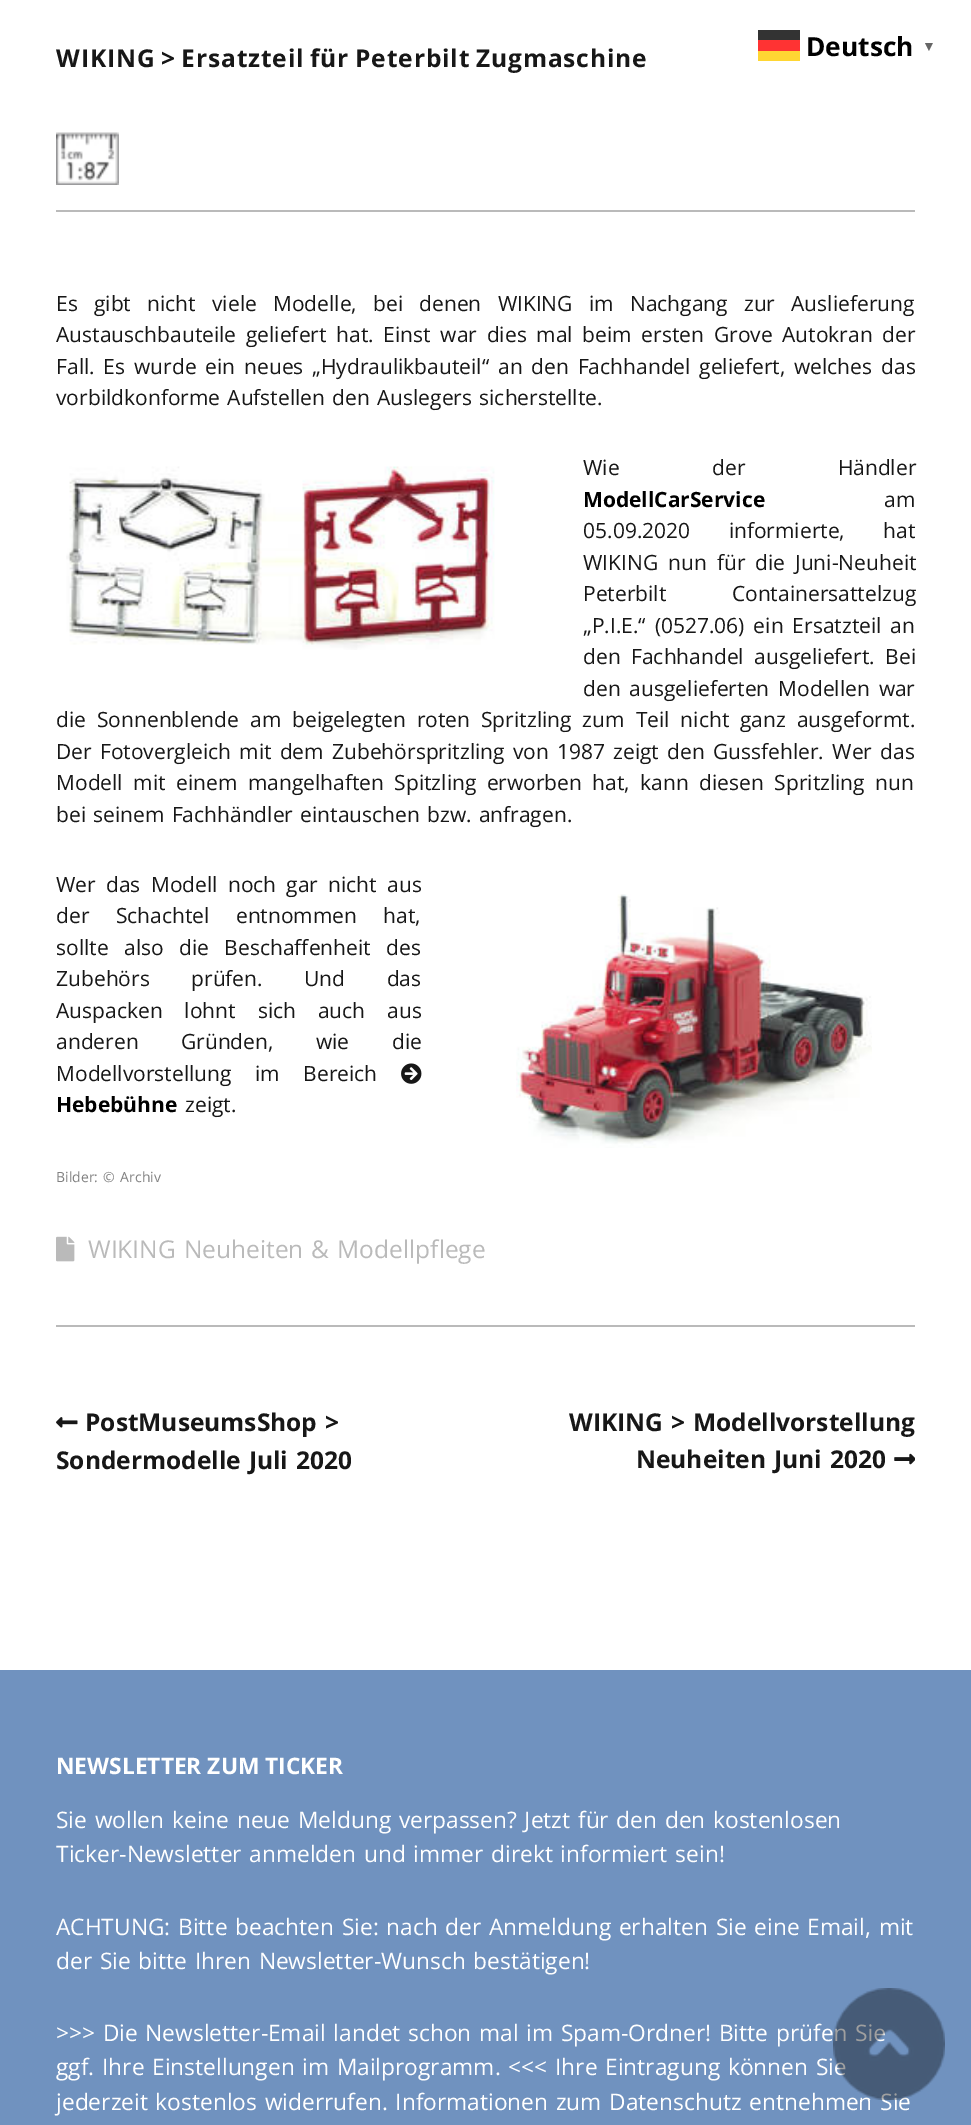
%!PS
<< /PageSize [971 2125] >> setpagedevice
/picture { 5 dict begin { /h /w /y /x /name } { exch def } forall
  gsave x y translate w h scale
  w h 8 [w 0 0 h 0 0] name (r) file false 3 colorimage grestore end } def
0 2125 translate 1 -1 scale
4 setmiterlimit
1 setgray
0 0 971 2125 rectfill
/OpenSans-Bold [26.25 0 0 -26.25 0 0] selectfont
0 setgray
806 56 moveto (Deutsch) show
1 0.839 0.2 setrgbcolor
758 51 42 10 rectfill
0.2 setgray
758 30 42 10 rectfill
1 0.2 0.2 setrgbcolor
758 40 42 11 rectfill
/LiberationSans-Bold [14 0 0 -14 0 0] selectfont
0.4 setgray
922 51 moveto (▼) show
0.729 setgray
56 1325 859 2 rectfill
/OpenSans-Bold [24.5 0 0 -24.5 0 0] selectfont
0.09 setgray
56 67 moveto -1.75 0 32 0.9 0 (WIKING > Ersatzteil für Peterbilt Zugmaschine) awidthshow
(img1.rgb) 56 132 63 53 picture
0.729 setgray
56 210 859 2 rectfill
/OpenSans-Regular [21 0 0 -21 0 0] selectfont
0.09 setgray
56 311 moveto 10.75 0 32 (Es gibt nicht viele Modelle, bei denen WIKING im Nachgang zur Auslieferung) widthshow
56 342 moveto 4.25 0 32 (Austauschbauteile geliefert hat. Einst war dies mal beim ersten Grove Autokran der) widthshow
56 374 moveto 3.4 0 32 (Fall. Es wurde ein neues „Hydraulikbauteil“ an den Fachhandel geliefert, welches das) widthshow
56 405 moveto 1.75 0 32 (vorbildkonforme Aufstellen den Auslegers sicherstellte.) widthshow
(img2.rgb) 66 466 429 184 picture
583 475 moveto 87 0 32 (Wie der Händler) widthshow
/OpenSans-Bold [21 0 0 -21 0 0] selectfont
0 setgray
583 507 moveto (ModellCarService) show
/OpenSans-Regular [21 0 0 -21 0 0] selectfont
0.09 setgray
884 507 moveto (am) show
583 538 moveto 33 0 32 (05.09.2020 informierte, hat) widthshow
583 570 moveto 4.5 0 32 (WIKING nun für die Juni-Neuheit) widthshow
583 601 moveto 60 0 32 (Peterbilt Containersattelzug) widthshow
583 633 moveto 3.5 0 32 („P.I.E.“ \(0527.06\) ein Ersatzteil an) widthshow
583 664 moveto 5 0 32 (den Fachhandel ausgeliefert. Bei) widthshow
583 696 moveto 3.5 0 32 (den ausgelieferten Modellen war) widthshow
56 727 moveto 5.5 0 32 (die Sonnenblende am beigelegten roten Spritzling zum Teil nicht ganz ausgeformt.) widthshow
56 759 moveto 2.75 0 32 (Der Fotovergleich mit dem Zubehörspritzling von 1987 zeigt den Gussfehler. Wer das) widthshow
56 790 moveto 5 0 32 (Modell mit einem mangelhaften Spitzling erworben hat, kann diesen Spritzling nun) widthshow
56 822 moveto 1.75 0 32 (bei seinem Fachhändler eintauschen bzw. anfragen.) widthshow
56 892 moveto 4.75 0 32 (Wer das Modell noch gar nicht aus) widthshow
56 923 moveto 21 0 32 (der Schachtel entnommen hat,) widthshow
(img3.rgb) 516 894 356 254 picture
56 955 moveto 10 0 32 (sollte also die Beschaffenheit des) widthshow
56 986 moveto 36 0 32 (Zubehörs prüfen. Und das) widthshow
56 1018 moveto 16.5 0 32 (Auspacken lohnt sich auch aus) widthshow
56 1049 moveto 37 0 32 (anderen Gründen, wie die) widthshow
56 1081 moveto 18 0 32 (Modellvorstellung im Bereich) widthshow
(img4.rgb) 401 1063 21 21 picture
/OpenSans-Bold [21 0 0 -21 0 0] selectfont
0 setgray
56 1112 moveto (Hebebühne) show
/OpenSans-Regular [21 0 0 -21 0 0] selectfont
0.09 setgray
185 1112 moveto (zeigt.) show
/OpenSans-Regular [14 0 0 -14 0 0] selectfont
0.502 setgray
56 1182 moveto 1.75 0 32 (Bilder: © Archiv) widthshow
(img5.rgb) 56 1236 19 26 picture
/OpenSans-Regular [24.5 0 0 -24.5 0 0] selectfont
0.729 setgray
88 1258 moveto 1.75 0 32 (WIKING Neuheiten & Modellpflege) widthshow
(img6.rgb) 56 1417 22 11 picture
/OpenSans-Bold [24.5 0 0 -24.5 0 0] selectfont
0.09 setgray
85 1431 moveto 1.75 0 32 (PostMuseumsShop >) widthshow
56 1469 moveto 1.75 0 32 (Sondermodelle Juli 2020) widthshow
569 1431 moveto 1.75 0 32 (WIKING > Modellvorstellung) widthshow
636 1468 moveto 1.75 0 32 (Neuheiten Juni 2020) widthshow
(img7.rgb) 894 1453 21 12 picture
0.439 0.573 0.749 setrgbcolor
0 1670 971 455 rectfill
/OpenSans-Bold [22.75 0 0 -22.75 0 0] selectfont
1 setgray
56 1774 moveto (NEWSLETTER ZUM TICKER) show
/OpenSans-Regular [22.75 0 0 -22.75 0 0] selectfont
56 1828 moveto 1.75 0 32 (Sie wollen keine neue Meldung verpassen? Jetzt für den den kostenlosen) widthshow
56 1862 moveto 1.75 0 32 (Ticker-Newsletter anmelden und immer direkt informiert sein!) widthshow
56 1935 moveto 1.75 0 32 (ACHTUNG: Bitte beachten Sie: nach der Anmeldung erhalten Sie eine Email, mit) widthshow
56 1969 moveto 1.75 0 32 (der Sie bitte Ihren Newsletter-Wunsch bestätigen!) widthshow
56 2041 moveto 1.75 0 32 (>>> Die Newsletter-Email landet schon mal im Spam-Ordner! Bitte prüfen Sie) widthshow
56 2075 moveto 1.75 0 32 (ggf. Ihre Einstellungen im Mailprogramm. <<<) widthshow
555 2075 moveto 1.75 0 32 (Ihre Eintragung können Sie) widthshow
56 2110 moveto 1.75 0 32 (jederzeit kostenlos widerrufen. Informationen zum Datenschutz entnehmen Sie) widthshow
(img8.rgb) 833 1988 112 112 picture
showpage
